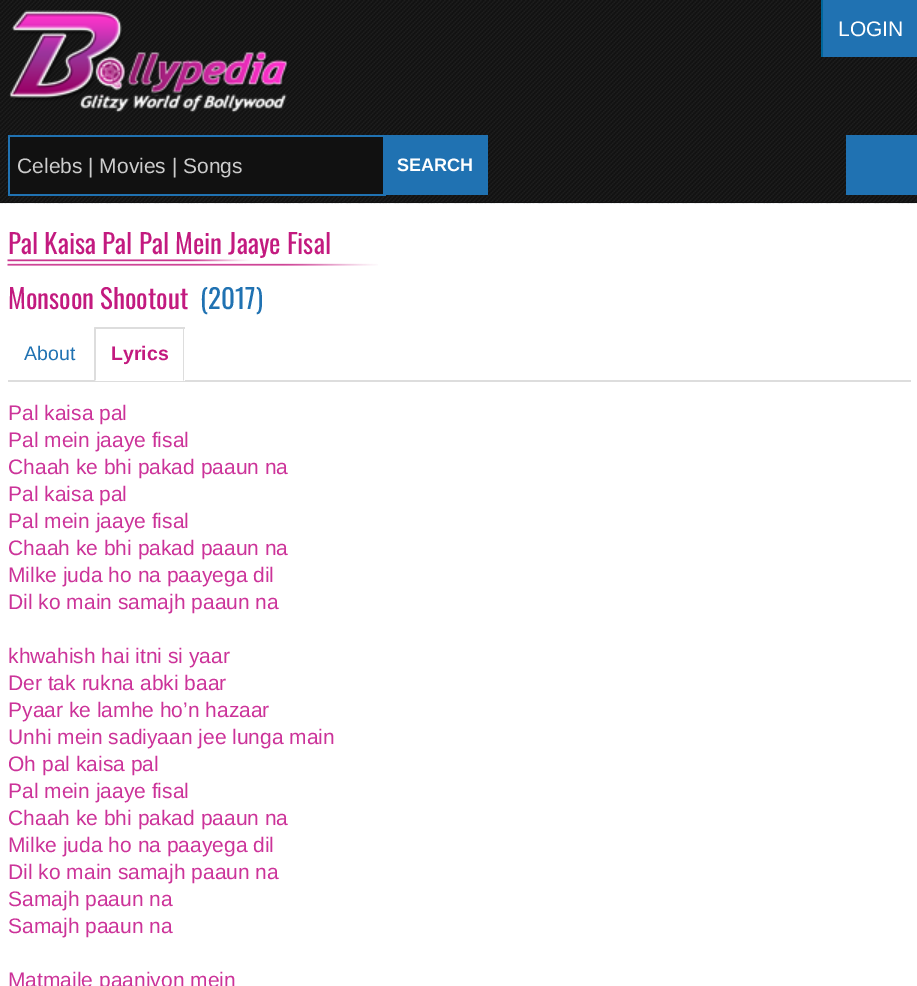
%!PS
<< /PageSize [917 986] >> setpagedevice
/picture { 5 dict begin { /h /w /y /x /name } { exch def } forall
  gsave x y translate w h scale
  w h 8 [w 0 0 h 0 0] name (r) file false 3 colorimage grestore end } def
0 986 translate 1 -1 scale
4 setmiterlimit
1 setgray
0 0 917 986 rectfill
(img1.rgb) 0 203 917 1 picture
0.067 setgray
0 202 917 1 rectfill
(img2.rgb) 0 0 917 202 picture
(img3.rgb) 9 10 279 103 picture
0.125 0.447 0.698 setrgbcolor
823 0 94 57 rectfill
0 0.4 0.6 setrgbcolor
821 0 2 57 rectfill
/LiberationSans-Regular [21 0 0 -21 0 0] selectfont
1 setgray
838 36 moveto (LOGIN) show
0.067 setgray
10 137 373 57 rectfill
0.125 0.447 0.698 setrgbcolor
8 135 378 2 rectfill
8 194 378 2 rectfill
8 135 2 60 rectfill
0.8 setgray
17 173 moveto (Celebs | Movies | Songs) show
0.125 0.447 0.698 setrgbcolor
383 135 105 60 rectfill
/LiberationSans-Bold [18 0 0 -18 0 0] selectfont
1 setgray
397 171 moveto (SEARCH) show
0.125 0.447 0.698 setrgbcolor
846 135 71 60 rectfill
(img4.rgb) 7 259 371 7 picture
/Oswald-Regular [27 0 0 -27 0 0] selectfont
0.765 0.102 0.498 setrgbcolor
8 254 moveto (Pal Kaisa Pal Pal Mein Jaaye Fisal) show
8 309 moveto (Monsoon Shootout) show
0.125 0.447 0.698 setrgbcolor
200 309 moveto (\(2017\)) show
0.867 setgray
8 380 903 2 rectfill
/LiberationSans-Regular [19.5 0 0 -19.5 0 0] selectfont
0.125 0.447 0.698 setrgbcolor
24 360 moveto (About) show
1 setgray
95 380 90 1 rectfill
0.867 setgray
95 327 90 2 rectfill
newpath 184 327 moveto 184 381 lineto 183 380 lineto 183 328 lineto closepath fill
newpath 94 381 moveto 94 327 lineto 96 328 lineto 96 380 lineto closepath fill
/LiberationSans-Bold [19.5 0 0 -19.5 0 0] selectfont
0.765 0.102 0.498 setrgbcolor
111 360 moveto (Lyrics) show
/LiberationSans-Regular [21 0 0 -21 0 0] selectfont
0.8 0.2 0.6 setrgbcolor
8 420 moveto (Pal kaisa pal) show
8 447 moveto (Pal mein jaaye fisal) show
8 474 moveto (Chaah ke bhi pakad paaun na) show
8 501 moveto (Pal kaisa pal) show
8 528 moveto (Pal mein jaaye fisal) show
8 555 moveto (Chaah ke bhi pakad paaun na) show
8 582 moveto (Milke juda ho na paayega dil) show
8 609 moveto (Dil ko main samajh paaun na) show
8 663 moveto (khwahish hai itni si yaar) show
8 690 moveto (Der tak rukna abki baar) show
8 717 moveto (Pyaar ke lamhe ho’n hazaar) show
8 744 moveto (Unhi mein sadiyaan jee lunga main) show
8 771 moveto (Oh pal kaisa pal) show
8 798 moveto (Pal mein jaaye fisal) show
8 825 moveto (Chaah ke bhi pakad paaun na) show
8 852 moveto (Milke juda ho na paayega dil) show
8 879 moveto (Dil ko main samajh paaun na) show
8 906 moveto (Samajh paaun na) show
8 933 moveto (Samajh paaun na) show
8 987 moveto (Matmaile paaniyon mein) show
showpage
